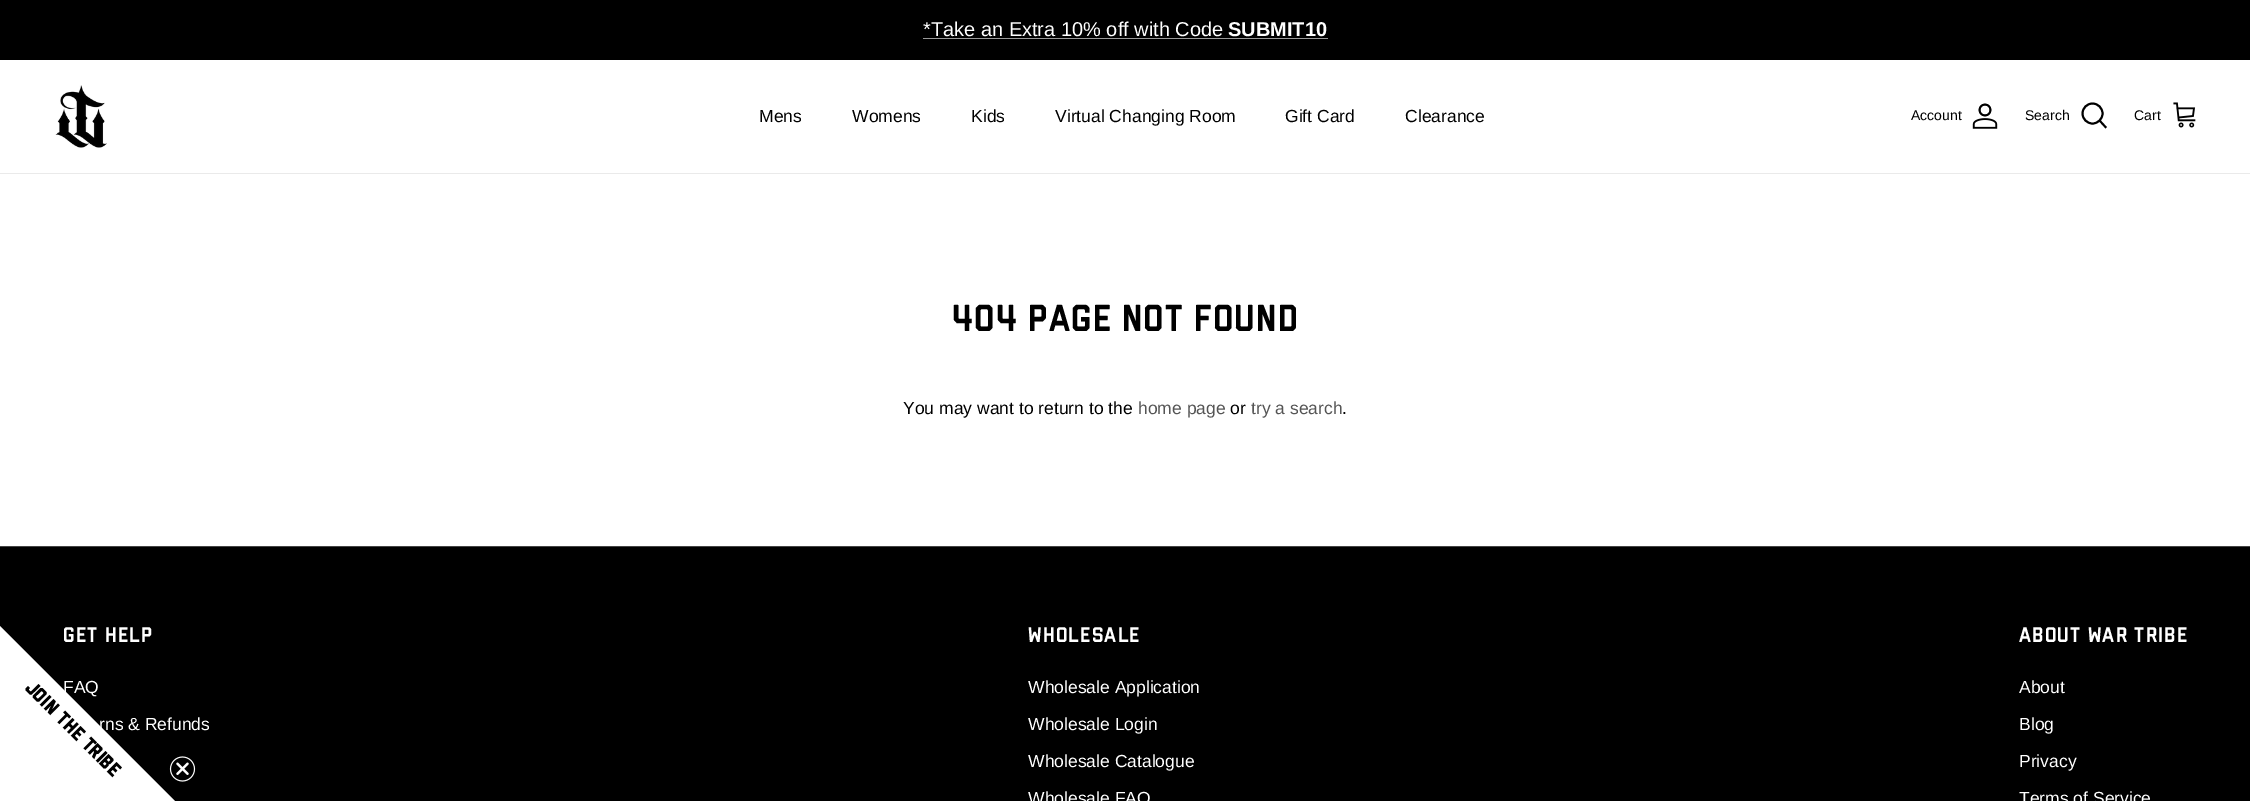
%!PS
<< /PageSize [2250 801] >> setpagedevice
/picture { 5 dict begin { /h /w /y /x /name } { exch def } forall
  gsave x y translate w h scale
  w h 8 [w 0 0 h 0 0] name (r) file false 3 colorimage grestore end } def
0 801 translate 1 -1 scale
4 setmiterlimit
1 setgray
0 0 2250 801 rectfill
0 setgray
0 0 2250 60 rectfill
/LiberationSans-Regular [20 0 0 -20 0 0] selectfont
1 setgray
923 36 moveto (*Take an Extra 10% off with Code) show
/LiberationSans-Bold [20 0 0 -20 0 0] selectfont
1228 36 moveto (SUBMIT10) show
0.6 setgray
923 38 405 1 rectfill
0.918 setgray
0 173 2250 1 rectfill
(img1.rgb) 55 85 52 63 picture
/LiberationSans-Regular [17.5 0 0 -17.5 0 0] selectfont
0 setgray
759 122 moveto (Mens) show
852 122 moveto (Womens) show
971 122 moveto (Kids) show
1055 122 moveto (Virtual Changing Room) show
1285 122 moveto (Gift Card) show
1405 122 moveto (Clearance) show
/LiberationSans-Regular [14 0 0 -14 0 0] selectfont
1911 120 moveto (Account) show
(img2.rgb) 1972 103 26 26 picture
2025 120 moveto (Search) show
1.9 setlinewidth
newpath 2092.5 113.5 10 0 360 arc closepath stroke
2 setlinecap
newpath 2100 121 moveto 2105.5 127 lineto stroke
2134 120 moveto (Cart) show
(img3.rgb) 2173 102 23 26 picture
/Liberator-Medium [37.5 0 0 -37.5 0 0] selectfont
952 331 moveto 1.25 0 (404 Page Not Found) ashow
/LiberationSans-Regular [17.5 0 0 -17.5 0 0] selectfont
903 414 moveto (You may want to return to the) show
0.333 setgray
1138 414 moveto (home page) show
0 setgray
1230 414 moveto (or) show
0.333 setgray
1251 414 moveto (try a search) show
0 setgray
1342 414 moveto (.) show
0 547 2250 254 rectfill
0.267 setgray
0 546 2250 1 rectfill
/Liberator-Medium [21.25 0 0 -21.25 0 0] selectfont
1 setgray
63 642 moveto 1.25 0 (Get Help) ashow
/LiberationSans-Regular [17.5 0 0 -17.5 0 0] selectfont
63 693 moveto (FAQ) show
99 730 moveto (rns & Refunds) show
/Liberator-Medium [21.25 0 0 -21.25 0 0] selectfont
1028 642 moveto 1.25 0 (Wholesale) ashow
/LiberationSans-Regular [17.5 0 0 -17.5 0 0] selectfont
1028 693 moveto (Wholesale Application) show
1028 730 moveto (Wholesale Login) show
1028 767 moveto (Wholesale Catalogue) show
1028 804 moveto (Wholesale FAQ) show
/Liberator-Medium [21.25 0 0 -21.25 0 0] selectfont
2019 642 moveto 1.25 0 (About War Tribe) ashow
/LiberationSans-Regular [17.5 0 0 -17.5 0 0] selectfont
2019 693 moveto (About) show
2019 730 moveto (Blog) show
2019 767 moveto (Privacy) show
2019 804 moveto (Terms of Service) show
newpath 0 626 moveto 175 801 lineto 0 801 lineto closepath fill
/Liberator-Black [20 0 0 -20 0 0] selectfont
0 setgray
gsave 24 689 translate 45 rotate 0 0 moveto (Join the tribe) show grestore
(img4.rgb) 169 756 27 26 picture
showpage
